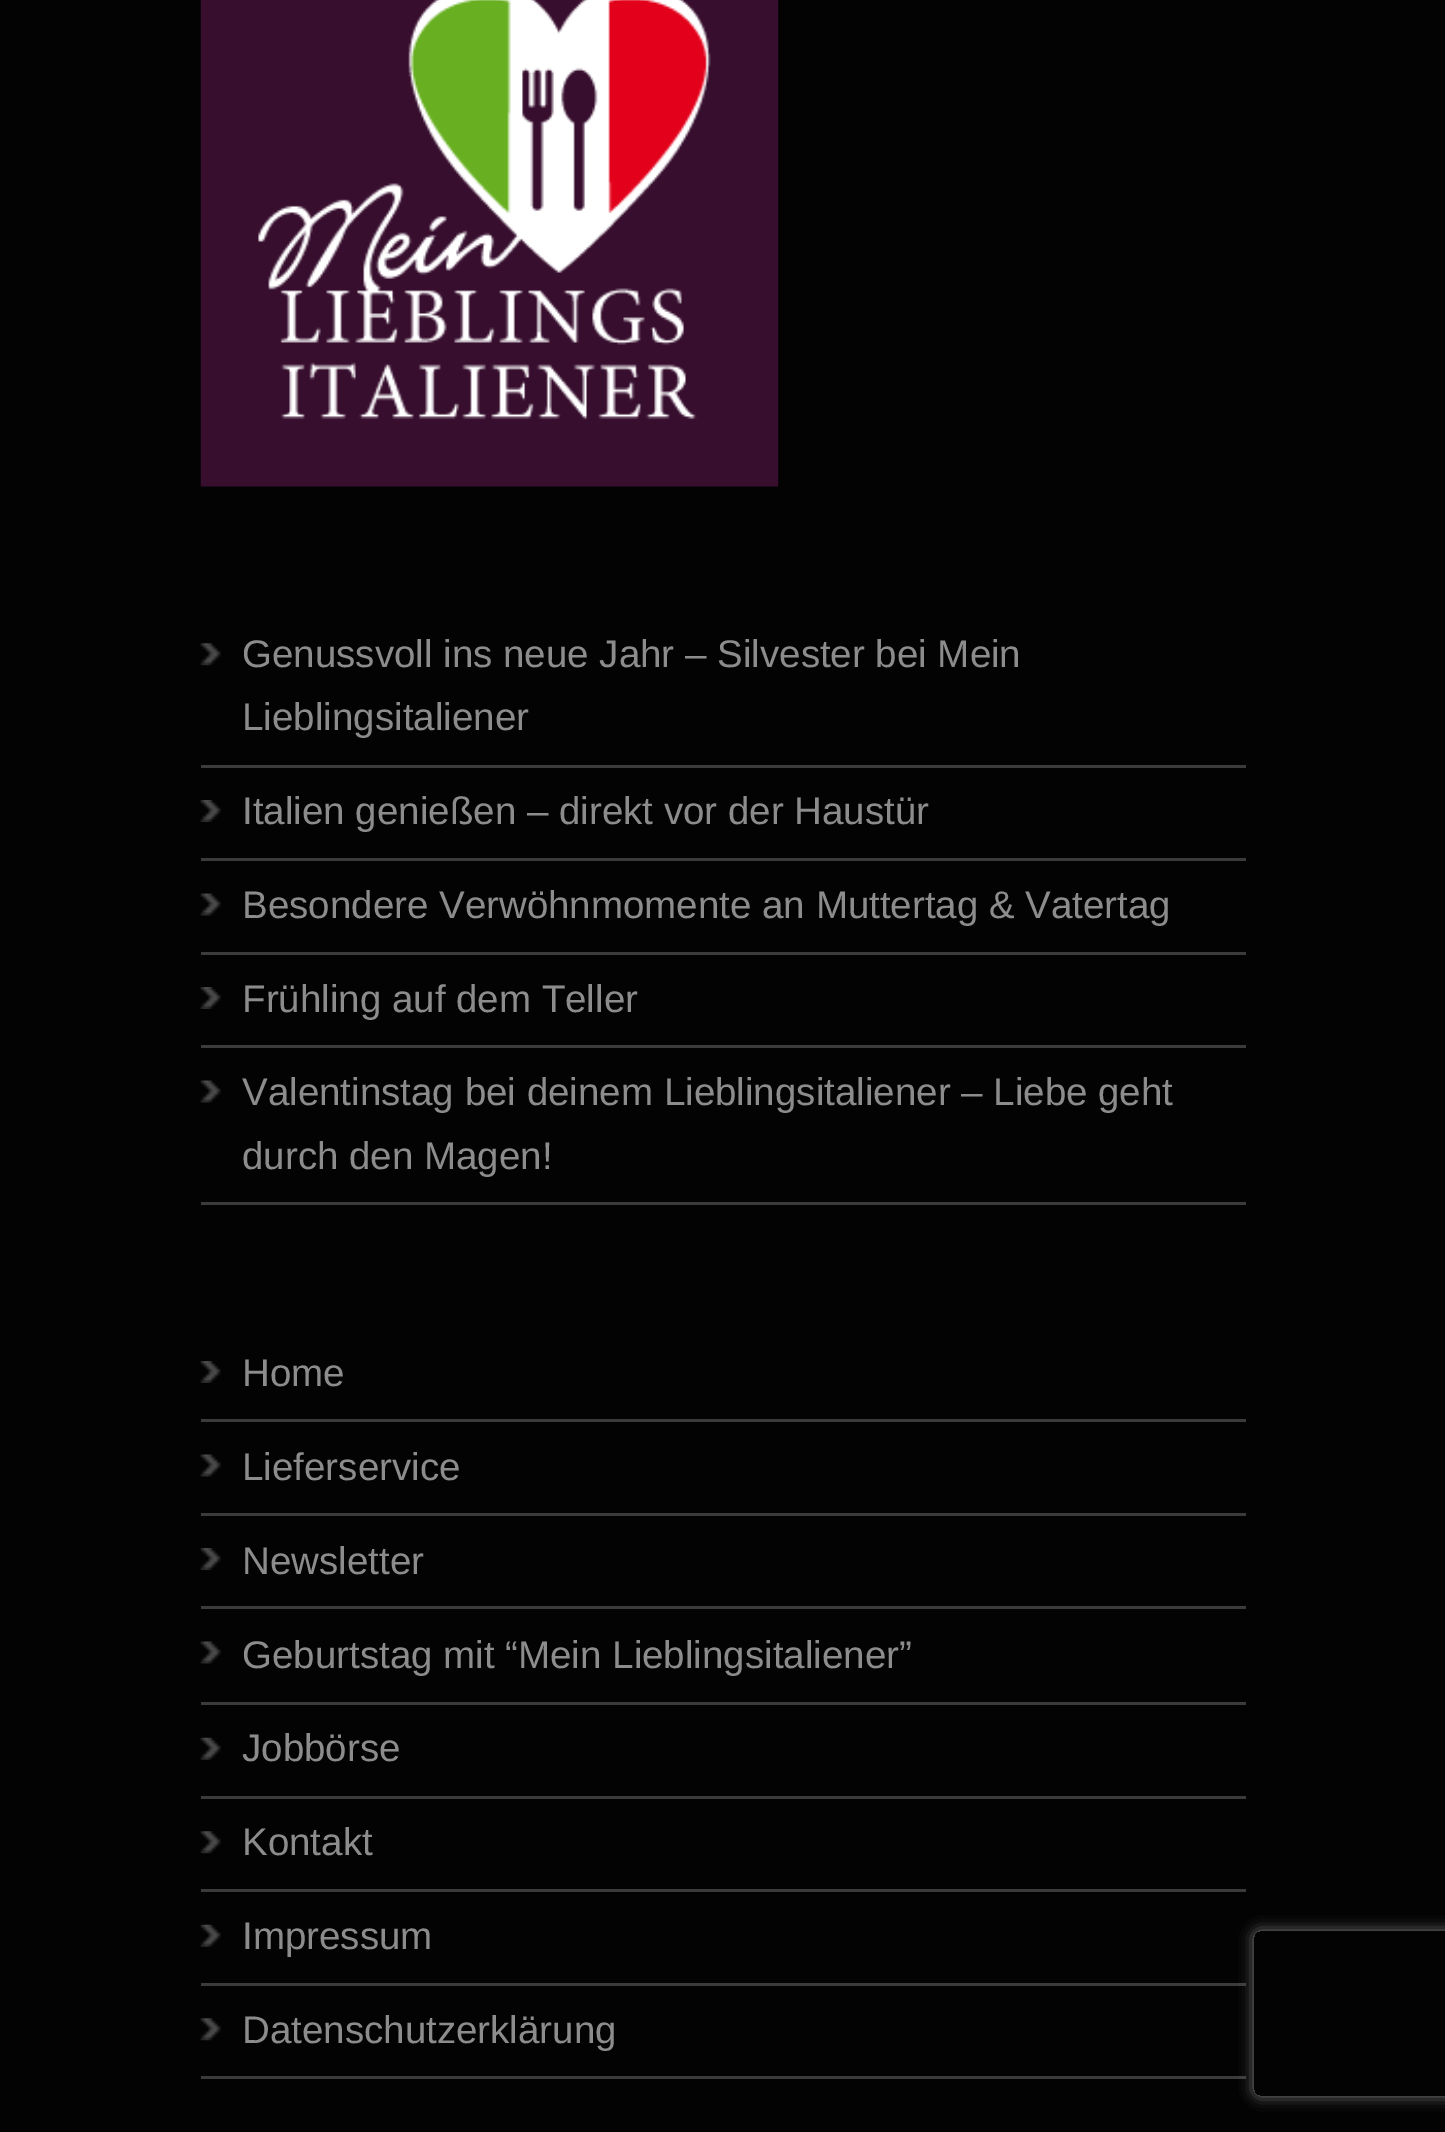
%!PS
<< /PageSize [1445 2132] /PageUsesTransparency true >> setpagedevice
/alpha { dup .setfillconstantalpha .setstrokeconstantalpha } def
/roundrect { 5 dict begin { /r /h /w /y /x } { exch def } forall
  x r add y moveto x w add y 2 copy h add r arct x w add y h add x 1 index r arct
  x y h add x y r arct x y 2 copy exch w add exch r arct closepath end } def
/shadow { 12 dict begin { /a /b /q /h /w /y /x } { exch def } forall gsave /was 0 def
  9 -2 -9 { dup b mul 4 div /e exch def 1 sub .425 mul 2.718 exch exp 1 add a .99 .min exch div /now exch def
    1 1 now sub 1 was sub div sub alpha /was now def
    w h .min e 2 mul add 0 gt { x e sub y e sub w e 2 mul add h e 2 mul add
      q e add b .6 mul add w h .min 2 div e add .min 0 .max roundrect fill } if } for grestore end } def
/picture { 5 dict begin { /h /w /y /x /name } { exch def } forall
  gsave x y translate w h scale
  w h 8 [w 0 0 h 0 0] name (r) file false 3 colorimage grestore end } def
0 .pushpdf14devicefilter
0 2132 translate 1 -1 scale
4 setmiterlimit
0.012 setgray
0 0 1445 2132 rectfill
(img1.rgb) 200 0 579 487 picture
(img2.rgb) 200 643 21 23 picture
0.231 setgray
201 765 1045 3 rectfill
/LiberationSans-Regular [38.5 0 0 -38.5 0 0] selectfont
0.549 setgray
242 667 moveto (Genussvoll ins neue Jahr – Silvester bei Mein) show
242 730 moveto (Lieblingsitaliener) show
(img3.rgb) 200 800 21 22 picture
0.231 setgray
201 858 1045 3 rectfill
0.549 setgray
242 824 moveto (Italien genießen – direkt vor der Haustür) show
(img4.rgb) 200 893 21 23 picture
0.231 setgray
201 952 1045 3 rectfill
0.549 setgray
242 918 moveto (Besondere Verwöhnmomente an Muttertag & Vatertag) show
(img3.rgb) 200 987 21 22 picture
0.231 setgray
201 1045 1045 3 rectfill
0.549 setgray
242 1012 moveto (Frühling auf dem Teller) show
(img4.rgb) 200 1080 21 23 picture
0.231 setgray
201 1202 1045 3 rectfill
0.549 setgray
242 1105 moveto (Valentinstag bei deinem Lieblingsitaliener – Liebe geht) show
242 1169 moveto (durch den Magen!) show
(img3.rgb) 200 1361 21 22 picture
0.231 setgray
201 1419 1045 3 rectfill
0.549 setgray
242 1386 moveto (Home) show
(img4.rgb) 200 1454 21 23 picture
0.231 setgray
201 1513 1045 3 rectfill
0.549 setgray
242 1480 moveto (Lieferservice) show
(img3.rgb) 200 1548 21 22 picture
0.231 setgray
201 1606 1045 3 rectfill
0.549 setgray
242 1574 moveto (Newsletter) show
(img4.rgb) 200 1641 21 23 picture
0.231 setgray
201 1702 1045 3 rectfill
0.549 setgray
242 1668 moveto (Geburtstag mit “Mein Lieblingsitaliener”) show
(img5.rgb) 200 1737 21 23 picture
0.231 setgray
201 1796 1045 3 rectfill
0.549 setgray
242 1761 moveto (Jobbörse) show
(img2.rgb) 200 1831 21 23 picture
0.231 setgray
201 1889 1045 3 rectfill
0.549 setgray
242 1855 moveto (Kontakt) show
(img5.rgb) 200 1924 21 23 picture
0.231 setgray
201 1983 1045 3 rectfill
0.549 setgray
242 1949 moveto (Impressum) show
(img2.rgb) 200 2018 21 23 picture
0.231 setgray
201 2076 1045 3 rectfill
0.549 setgray
242 2043 moveto (Datenschutzerklärung) show
gsave
newpath 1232 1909 moveto 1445 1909 lineto 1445 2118 lineto 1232 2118 lineto closepath 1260 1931 moveto 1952 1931 lineto 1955.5 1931 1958 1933.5 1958 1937 curveto 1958 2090 lineto 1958 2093.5 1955.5 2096 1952 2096 curveto 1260 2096 lineto 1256.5 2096 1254 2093.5 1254 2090 curveto 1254 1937 lineto 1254 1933.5 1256.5 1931 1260 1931 curveto closepath eoclip newpath
0.502 setgray
1254 1931 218 165 6 7 1 shadow
grestore
.poppdf14devicefilter showpage
